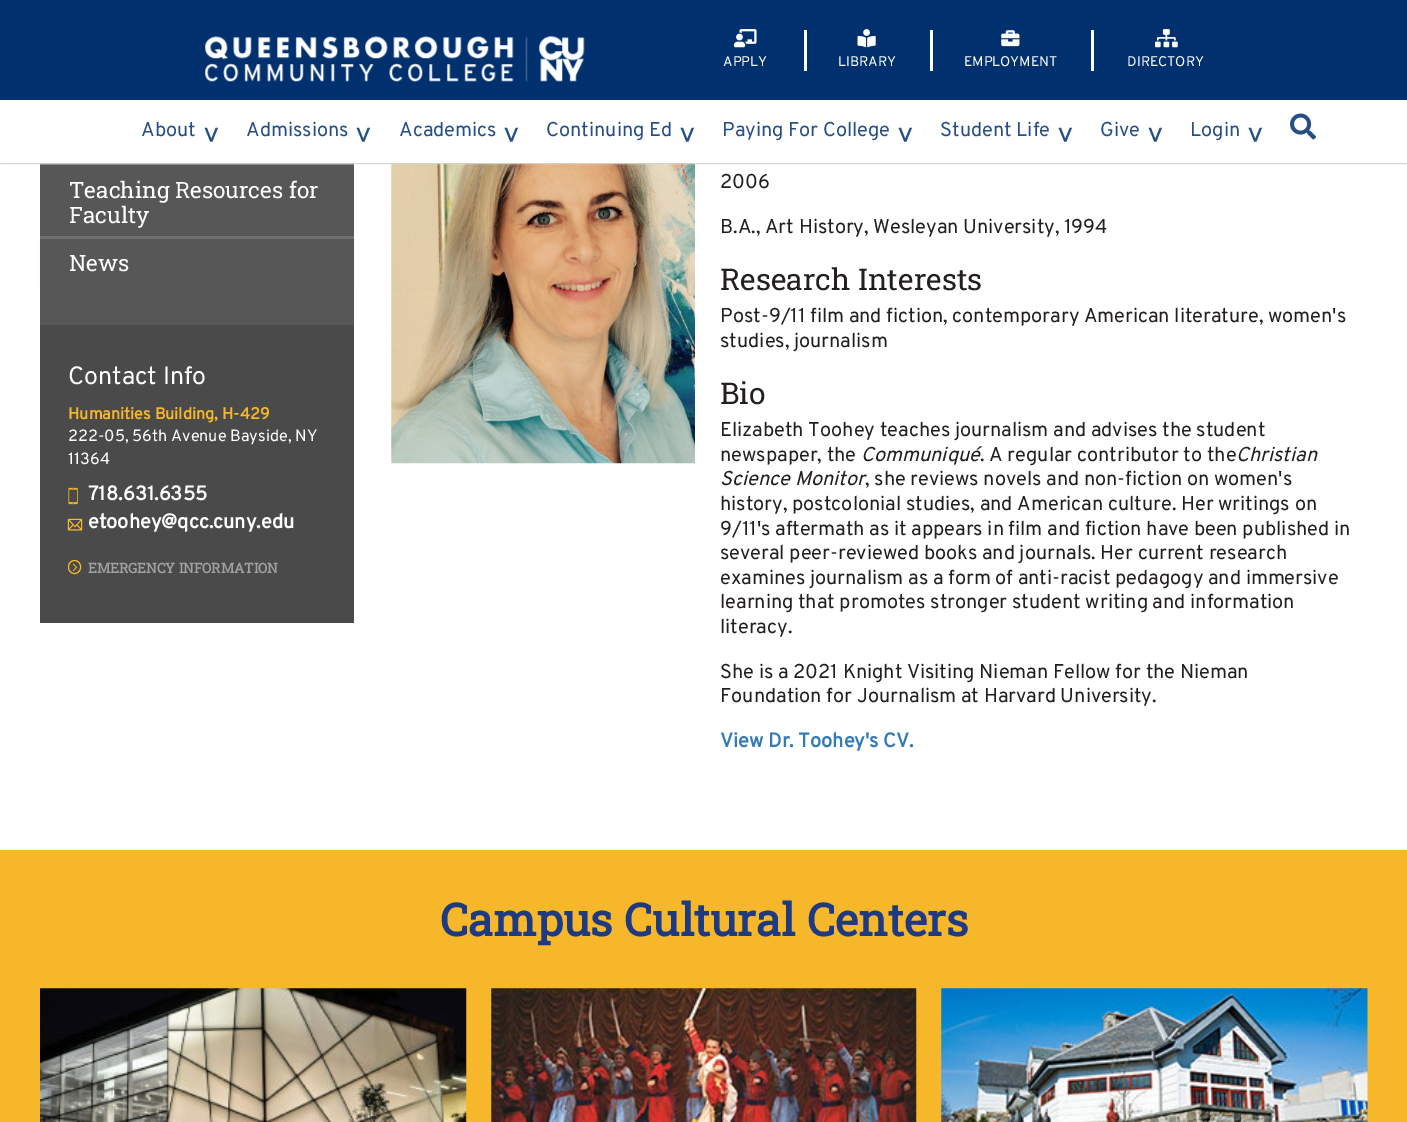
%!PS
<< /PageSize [1407 1122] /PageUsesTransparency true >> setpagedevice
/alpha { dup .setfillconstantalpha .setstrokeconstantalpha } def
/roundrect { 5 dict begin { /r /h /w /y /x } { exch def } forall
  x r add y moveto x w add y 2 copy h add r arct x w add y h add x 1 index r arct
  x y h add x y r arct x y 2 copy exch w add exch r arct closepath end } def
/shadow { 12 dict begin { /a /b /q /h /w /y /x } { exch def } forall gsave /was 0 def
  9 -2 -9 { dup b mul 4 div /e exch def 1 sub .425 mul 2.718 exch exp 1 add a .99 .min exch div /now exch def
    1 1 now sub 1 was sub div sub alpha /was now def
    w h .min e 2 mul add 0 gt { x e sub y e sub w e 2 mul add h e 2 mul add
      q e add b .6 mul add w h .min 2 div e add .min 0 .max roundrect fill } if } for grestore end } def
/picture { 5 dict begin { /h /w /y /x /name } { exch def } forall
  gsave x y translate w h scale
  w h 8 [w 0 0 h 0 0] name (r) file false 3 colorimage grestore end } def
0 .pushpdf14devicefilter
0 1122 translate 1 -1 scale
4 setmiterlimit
1 setgray
0 0 1407 1122 rectfill
0.439 0.443 0.443 setrgbcolor
40 163 314 2 rectfill
0.341 setgray
40 165 314 71 rectfill
(img10.rgb) 391 163 304 301 picture
0.827 setgray
0 1 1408 163 0 0.5 1 shadow
0 0.188 0.427 setrgbcolor
0 0 1407 100 rectfill
(img1.rgb) 205 36 380 46 picture
(img2.rgb) 733 29 24 19 picture
/Overpass-Regular [14 0 0 -14 0 0] selectfont
1 setgray
723 66 moveto (APPLY) show
804 30 3 41 rectfill
(img3.rgb) 857 29 19 19 picture
838 66 moveto (LIBRARY) show
930 30 3 41 rectfill
(img4.rgb) 1001 30 19 17 picture
964 66 moveto (EMPLOYMENT) show
1091 30 3 41 rectfill
(img5.rgb) 1155 29 23 19 picture
1127 66 moveto (DIRECTORY) show
0 100 1407 63 rectfill
/Overpass-Regular [20 0 0 -20 0 0] selectfont
0.153 0.31 0.514 setrgbcolor
141 136 moveto (About) show
/Overpass-Regular [30 0 0 -30 0 0] selectfont
gsave 201 125 translate 90 rotate 0 0 moveto -6 0 (>) ashow grestore
/Overpass-Regular [20 0 0 -20 0 0] selectfont
246 136 moveto (Admissions) show
/Overpass-Regular [30 0 0 -30 0 0] selectfont
gsave 353 125 translate 90 rotate 0 0 moveto -6 0 (>) ashow grestore
/Overpass-Regular [20 0 0 -20 0 0] selectfont
399 136 moveto (Academics) show
/Overpass-Regular [30 0 0 -30 0 0] selectfont
gsave 501 125 translate 90 rotate 0 0 moveto -6 0 (>) ashow grestore
/Overpass-Regular [20 0 0 -20 0 0] selectfont
546 136 moveto (Continuing Ed) show
/Overpass-Regular [30 0 0 -30 0 0] selectfont
gsave 677 125 translate 90 rotate 0 0 moveto -6 0 (>) ashow grestore
/Overpass-Regular [20 0 0 -20 0 0] selectfont
722 136 moveto (Paying For College) show
/Overpass-Regular [30 0 0 -30 0 0] selectfont
gsave 895 125 translate 90 rotate 0 0 moveto -6 0 (>) ashow grestore
/Overpass-Regular [20 0 0 -20 0 0] selectfont
940 136 moveto (Student Life) show
/Overpass-Regular [30 0 0 -30 0 0] selectfont
gsave 1055 125 translate 90 rotate 0 0 moveto -6 0 (>) ashow grestore
/Overpass-Regular [20 0 0 -20 0 0] selectfont
1100 136 moveto (Give) show
/Overpass-Regular [30 0 0 -30 0 0] selectfont
gsave 1145 125 translate 90 rotate 0 0 moveto -6 0 (>) ashow grestore
/Overpass-Regular [20 0 0 -20 0 0] selectfont
1190 136 moveto (Login) show
/Overpass-Regular [30 0 0 -30 0 0] selectfont
gsave 1245 125 translate 90 rotate 0 0 moveto -6 0 (>) ashow grestore
(img6.rgb) 1290 113 26 27 picture
0.341 setgray
40 285 314 40 rectfill
0.439 0.443 0.443 setrgbcolor
40 236 314 3 rectfill
/RobotoSlab-Regular [22.5 0 0 -22.5 0 0] selectfont
1 setgray
69 198 moveto (Teaching Resources for) show
69 223 moveto (Faculty) show
0 setgray
40 240 314 46 0 0.5 0.05 shadow
0.341 setgray
40 239 314 46 rectfill
1 setgray
69 271 moveto (News) show
0.29 setgray
40 325 314 298 rectfill
/Overpass-Regular [25 0 0 -25 0 0] selectfont
1 setgray
68 384 moveto (Contact Info) show
/Overpass-Bold [16.25 0 0 -16.25 0 0] selectfont
0.965 0.718 0.169 setrgbcolor
68 419 moveto (Humanities Building, H-429) show
/Overpass-Regular [16.25 0 0 -16.25 0 0] selectfont
1 setgray
68 441 moveto (222-05, 56th Avenue Bayside, NY) show
68 464 moveto (11364) show
(img7.rgb) 68 487 10 18 picture
/Overpass-Bold [20 0 0 -20 0 0] selectfont
88 500 moveto (718.631.6355) show
(img8.rgb) 67 518 16 13 picture
88 528 moveto (etoohey@qcc.cuny.edu) show
0.965 0.718 0.169 setrgbcolor
68.5 560.5 12 13 6 roundrect stroke
(img9.rgb) 72 563 6 8 picture
/RobotoSlab-Bold [13.75 0 0 -13.75 0 0] selectfont
0.624 0.631 0.635 setrgbcolor
88 573 moveto (EMERGENCY INFORMATION) show
/Overpass-Regular [20 0 0 -20 0 0] selectfont
0.137 0.122 0.125 setrgbcolor
720 188 moveto (2006) show
720 233 moveto (B.A., Art History, Wesleyan University, 1994) show
/RobotoSlab-Regular [30 0 0 -30 0 0] selectfont
720 290 moveto (Research Interests) show
/Overpass-Regular [20 0 0 -20 0 0] selectfont
720 322 moveto (Post-9/11 film and fiction, contemporary American literature, women's) show
720 347 moveto (studies, journalism) show
/RobotoSlab-Regular [30 0 0 -30 0 0] selectfont
720 404 moveto (Bio) show
/Overpass-Regular [20 0 0 -20 0 0] selectfont
720 436 moveto (Elizabeth Toohey teaches journalism and advises the student) show
720 461 moveto (newspaper, the) show
/Overpass-Italic [20 0 0 -20 0 0] selectfont
861 461 moveto (Communiqué) show
/Overpass-Regular [20 0 0 -20 0 0] selectfont
980 461 moveto (. A regular contributor to the) show
/Overpass-Italic [20 0 0 -20 0 0] selectfont
1236 461 moveto (Christian) show
720 485 moveto (Science Monitor) show
/Overpass-Regular [20 0 0 -20 0 0] selectfont
865 485 moveto (, she reviews novels and non-fiction on women's) show
720 510 moveto (history, postcolonial studies, and American culture. Her writings on) show
720 535 moveto (9/11's aftermath as it appears in film and fiction have been published in) show
720 559 moveto (several peer-reviewed books and journals. Her current research) show
720 584 moveto (examines journalism as a form of anti-racist pedagogy and immersive) show
720 608 moveto (learning that promotes stronger student writing and information) show
720 633 moveto (literacy.) show
720 678 moveto (She is a 2021 Knight Visiting Nieman Fellow for the Nieman) show
720 702 moveto (Foundation for Journalism at Harvard University.) show
/Overpass-Bold [20 0 0 -20 0 0] selectfont
0.2 0.478 0.718 setrgbcolor
720 747 moveto (View Dr. Toohey's CV.) show
0.965 0.718 0.169 setrgbcolor
0 850 1407 272 rectfill
/RobotoSlab-Bold [45 0 0 -45 0 0] selectfont
0.114 0.227 0.514 setrgbcolor
440 936 moveto (Campus Cultural Centers) show
(img11.rgb) 40 988 427 134 picture
(img12.rgb) 491 988 426 134 picture
(img13.rgb) 941 988 427 134 picture
.poppdf14devicefilter showpage
